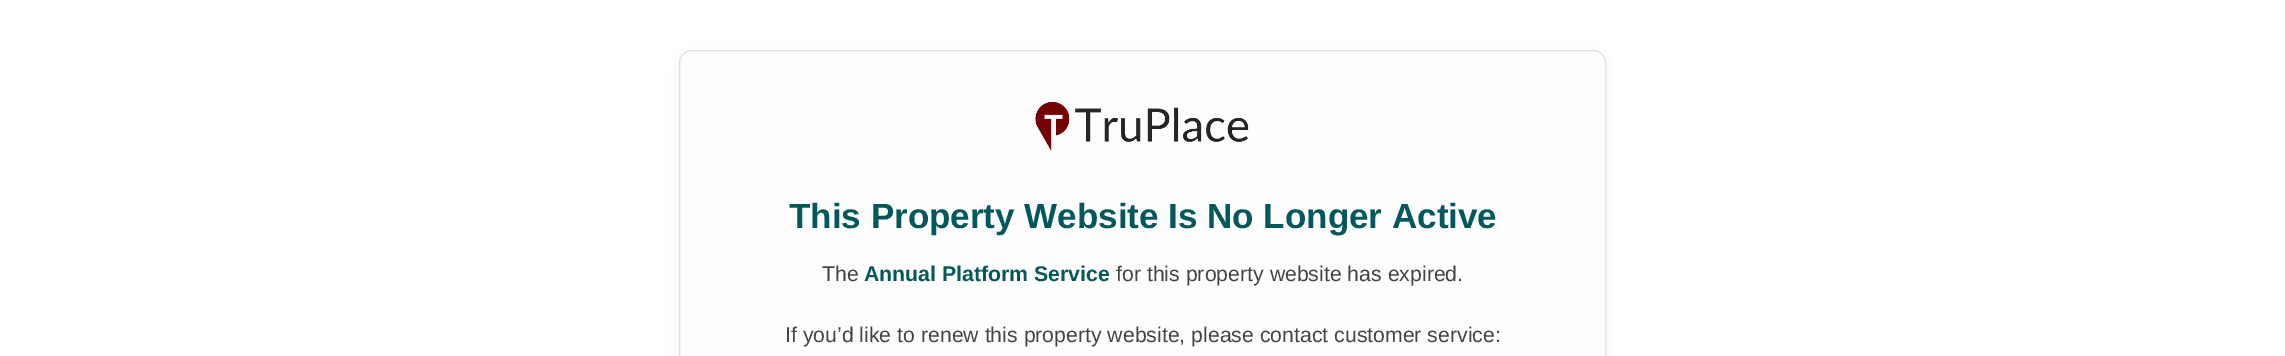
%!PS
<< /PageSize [2285 356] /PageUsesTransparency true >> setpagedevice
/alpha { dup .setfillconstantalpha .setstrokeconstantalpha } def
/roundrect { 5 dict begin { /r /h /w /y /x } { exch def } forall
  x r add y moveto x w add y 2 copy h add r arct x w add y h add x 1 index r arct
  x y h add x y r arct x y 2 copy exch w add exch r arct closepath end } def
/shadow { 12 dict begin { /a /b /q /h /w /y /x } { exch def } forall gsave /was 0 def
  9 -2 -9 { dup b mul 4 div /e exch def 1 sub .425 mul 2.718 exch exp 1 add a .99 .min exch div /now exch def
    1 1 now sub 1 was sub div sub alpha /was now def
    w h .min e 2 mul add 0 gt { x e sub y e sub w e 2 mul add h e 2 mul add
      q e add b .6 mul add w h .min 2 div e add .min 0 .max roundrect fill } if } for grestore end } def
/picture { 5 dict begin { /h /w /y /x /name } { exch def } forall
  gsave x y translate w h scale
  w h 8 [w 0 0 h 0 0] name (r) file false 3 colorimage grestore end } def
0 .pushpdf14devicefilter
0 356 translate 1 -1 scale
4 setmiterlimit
1 setgray
0 0 2285 356 rectfill
0 setgray
679 53 927 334 13 6 0.06 shadow
0.992 setgray
679.5 50.5 926 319 12.5 roundrect gsave fill grestore
0.878 setgray
stroke
(img1.rgb) 1035 101 214 50 picture
/LiberationSans-Bold [35 0 0 -35 0 0] selectfont
0.016 0.345 0.361 setrgbcolor
789 228 moveto (This Property Website Is No Longer Active) show
/LiberationSans-Regular [21.25 0 0 -21.25 0 0] selectfont
0.267 setgray
822 281 moveto (The) show
/LiberationSans-Bold [21.25 0 0 -21.25 0 0] selectfont
0.016 0.345 0.361 setrgbcolor
864 281 moveto (Annual Platform Service) show
/LiberationSans-Regular [21.25 0 0 -21.25 0 0] selectfont
0.267 setgray
1116 281 moveto (for this property website has expired.) show
785 342 moveto (If you’d like to renew this property website, please contact customer service:) show
.poppdf14devicefilter showpage
